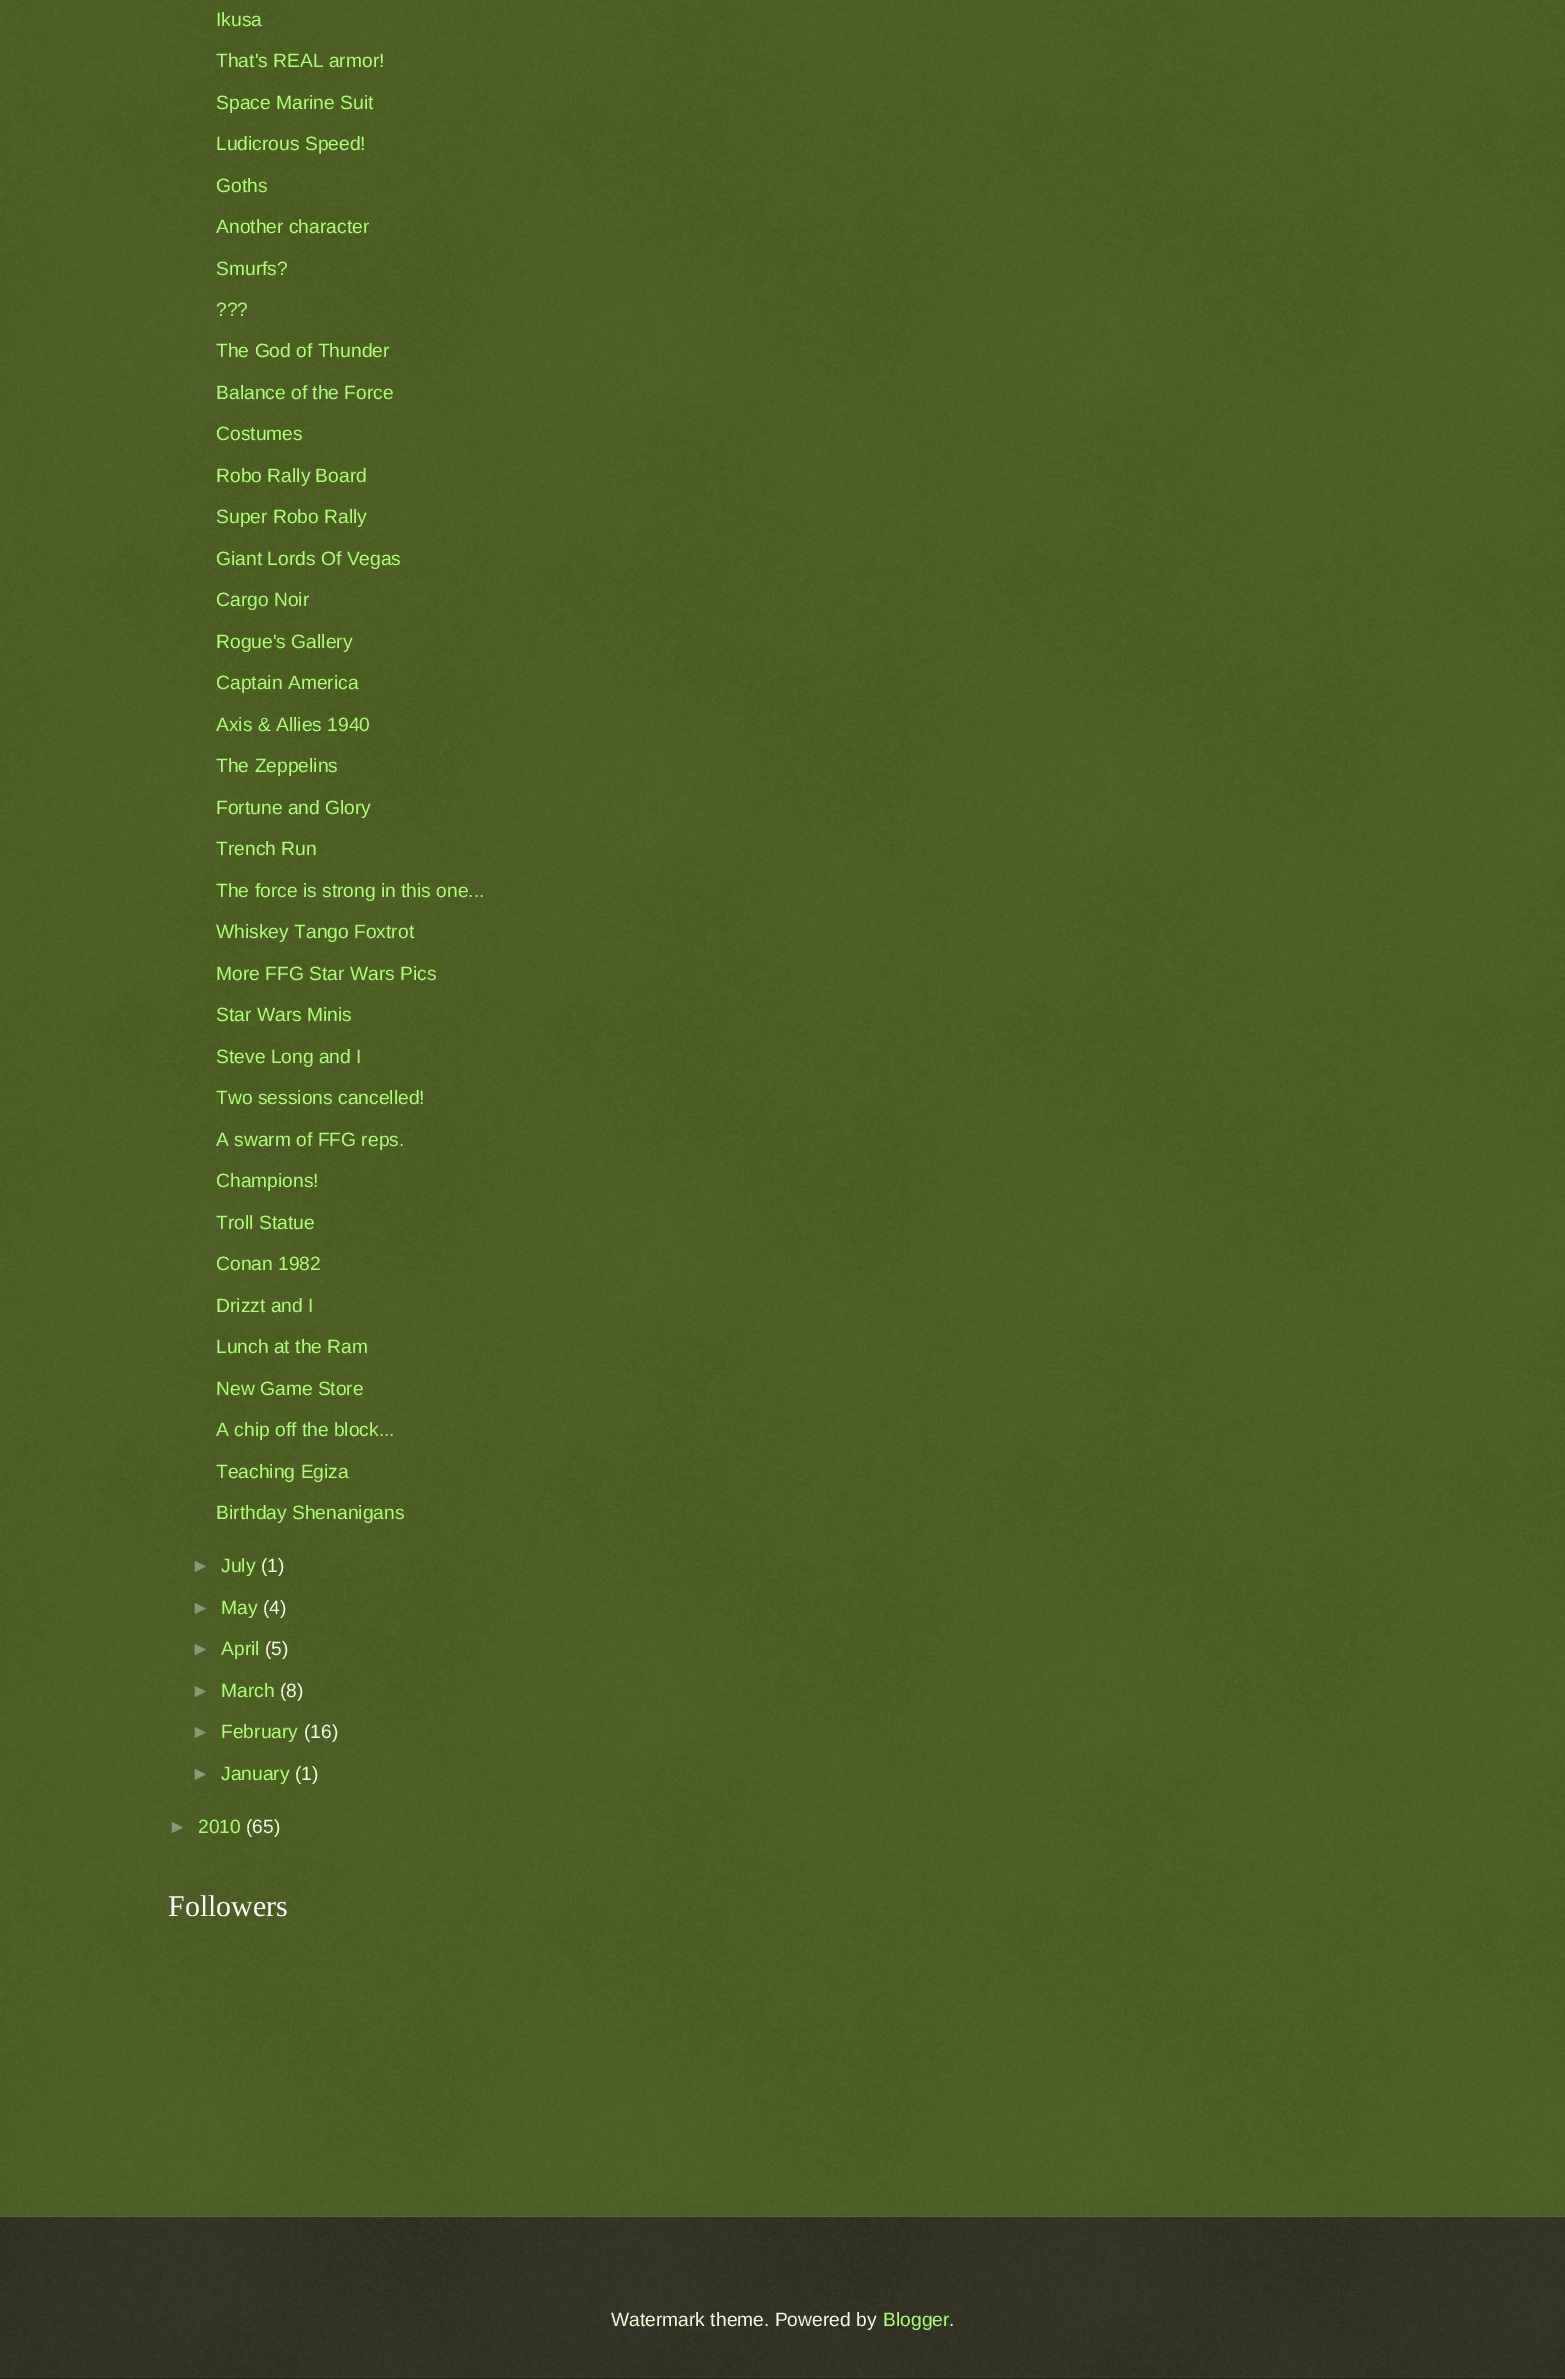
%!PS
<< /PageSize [1565 2379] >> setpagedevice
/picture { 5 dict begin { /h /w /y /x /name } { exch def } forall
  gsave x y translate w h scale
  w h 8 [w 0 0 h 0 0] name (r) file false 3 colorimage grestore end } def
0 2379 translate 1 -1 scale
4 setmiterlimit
0.184 0.267 0 setrgbcolor
0 0 1565 2379 rectfill
(img1.rgb) 0 0 1565 2217 picture
/LiberationSans-Regular [19.25 0 0 -19.25 0 0] selectfont
0.667 1 0.467 setrgbcolor
216 26 moveto (Ikusa) show
216 67 moveto (That's REAL armor!) show
216 109 moveto (Space Marine Suit) show
216 150 moveto (Ludicrous Speed!) show
216 192 moveto (Goths) show
216 233 moveto (Another character) show
216 275 moveto (Smurfs?) show
216 316 moveto (???) show
216 357 moveto (The God of Thunder) show
216 399 moveto (Balance of the Force) show
216 440 moveto (Costumes) show
216 482 moveto (Robo Rally Board) show
216 523 moveto (Super Robo Rally) show
216 565 moveto (Giant Lords Of Vegas) show
216 606 moveto (Cargo Noir) show
216 648 moveto (Rogue's Gallery) show
216 689 moveto (Captain America) show
216 731 moveto (Axis & Allies 1940) show
216 772 moveto (The Zeppelins) show
216 814 moveto (Fortune and Glory) show
216 855 moveto (Trench Run) show
216 897 moveto (The force is strong in this one...) show
216 938 moveto (Whiskey Tango Foxtrot) show
216 980 moveto (More FFG Star Wars Pics) show
216 1021 moveto (Star Wars Minis) show
216 1063 moveto (Steve Long and I) show
216 1104 moveto (Two sessions cancelled!) show
216 1146 moveto (A swarm of FFG reps.) show
216 1187 moveto (Champions!) show
216 1229 moveto (Troll Statue) show
216 1270 moveto (Conan 1982) show
216 1312 moveto (Drizzt and I) show
216 1353 moveto (Lunch at the Ram) show
216 1395 moveto (New Game Store) show
216 1436 moveto (A chip off the block...) show
216 1478 moveto (Teaching Egiza) show
216 1519 moveto (Birthday Shenanigans) show
0.533 0.6 0.467 setrgbcolor
191 1572 moveto (►) show
0.667 1 0.467 setrgbcolor
221 1572 moveto (July) show
0.933 1 0.867 setrgbcolor
261 1572 moveto (\(1\)) show
0.533 0.6 0.467 setrgbcolor
191 1614 moveto (►) show
0.667 1 0.467 setrgbcolor
221 1614 moveto (May) show
0.933 1 0.867 setrgbcolor
263 1614 moveto (\(4\)) show
0.533 0.6 0.467 setrgbcolor
191 1655 moveto (►) show
0.667 1 0.467 setrgbcolor
221 1655 moveto (April) show
0.933 1 0.867 setrgbcolor
265 1655 moveto (\(5\)) show
0.533 0.6 0.467 setrgbcolor
191 1697 moveto (►) show
0.667 1 0.467 setrgbcolor
221 1697 moveto (March) show
0.933 1 0.867 setrgbcolor
280 1697 moveto (\(8\)) show
0.533 0.6 0.467 setrgbcolor
191 1738 moveto (►) show
0.667 1 0.467 setrgbcolor
221 1738 moveto (February) show
0.933 1 0.867 setrgbcolor
304 1738 moveto (\(16\)) show
0.533 0.6 0.467 setrgbcolor
191 1780 moveto (►) show
0.667 1 0.467 setrgbcolor
221 1780 moveto (January) show
0.933 1 0.867 setrgbcolor
295 1780 moveto (\(1\)) show
0.533 0.6 0.467 setrgbcolor
168 1833 moveto (►) show
0.667 1 0.467 setrgbcolor
198 1833 moveto (2010) show
0.933 1 0.867 setrgbcolor
246 1833 moveto (\(65\)) show
/LiberationSerif-Regular [30 0 0 -30 0 0] selectfont
1 setgray
168 1916 moveto (Followers) show
0.067 0.067 0 setrgbcolor
0 2217 1565 162 rectfill
(img2.rgb) 0 2216 1565 163 picture
/LiberationSans-Regular [19.25 0 0 -19.25 0 0] selectfont
0.933 1 0.867 setrgbcolor
611 2326 moveto (Watermark theme. Powered by) show
0.667 1 0.467 setrgbcolor
883 2326 moveto (Blogger) show
0.933 1 0.867 setrgbcolor
949 2326 moveto (.) show
showpage
